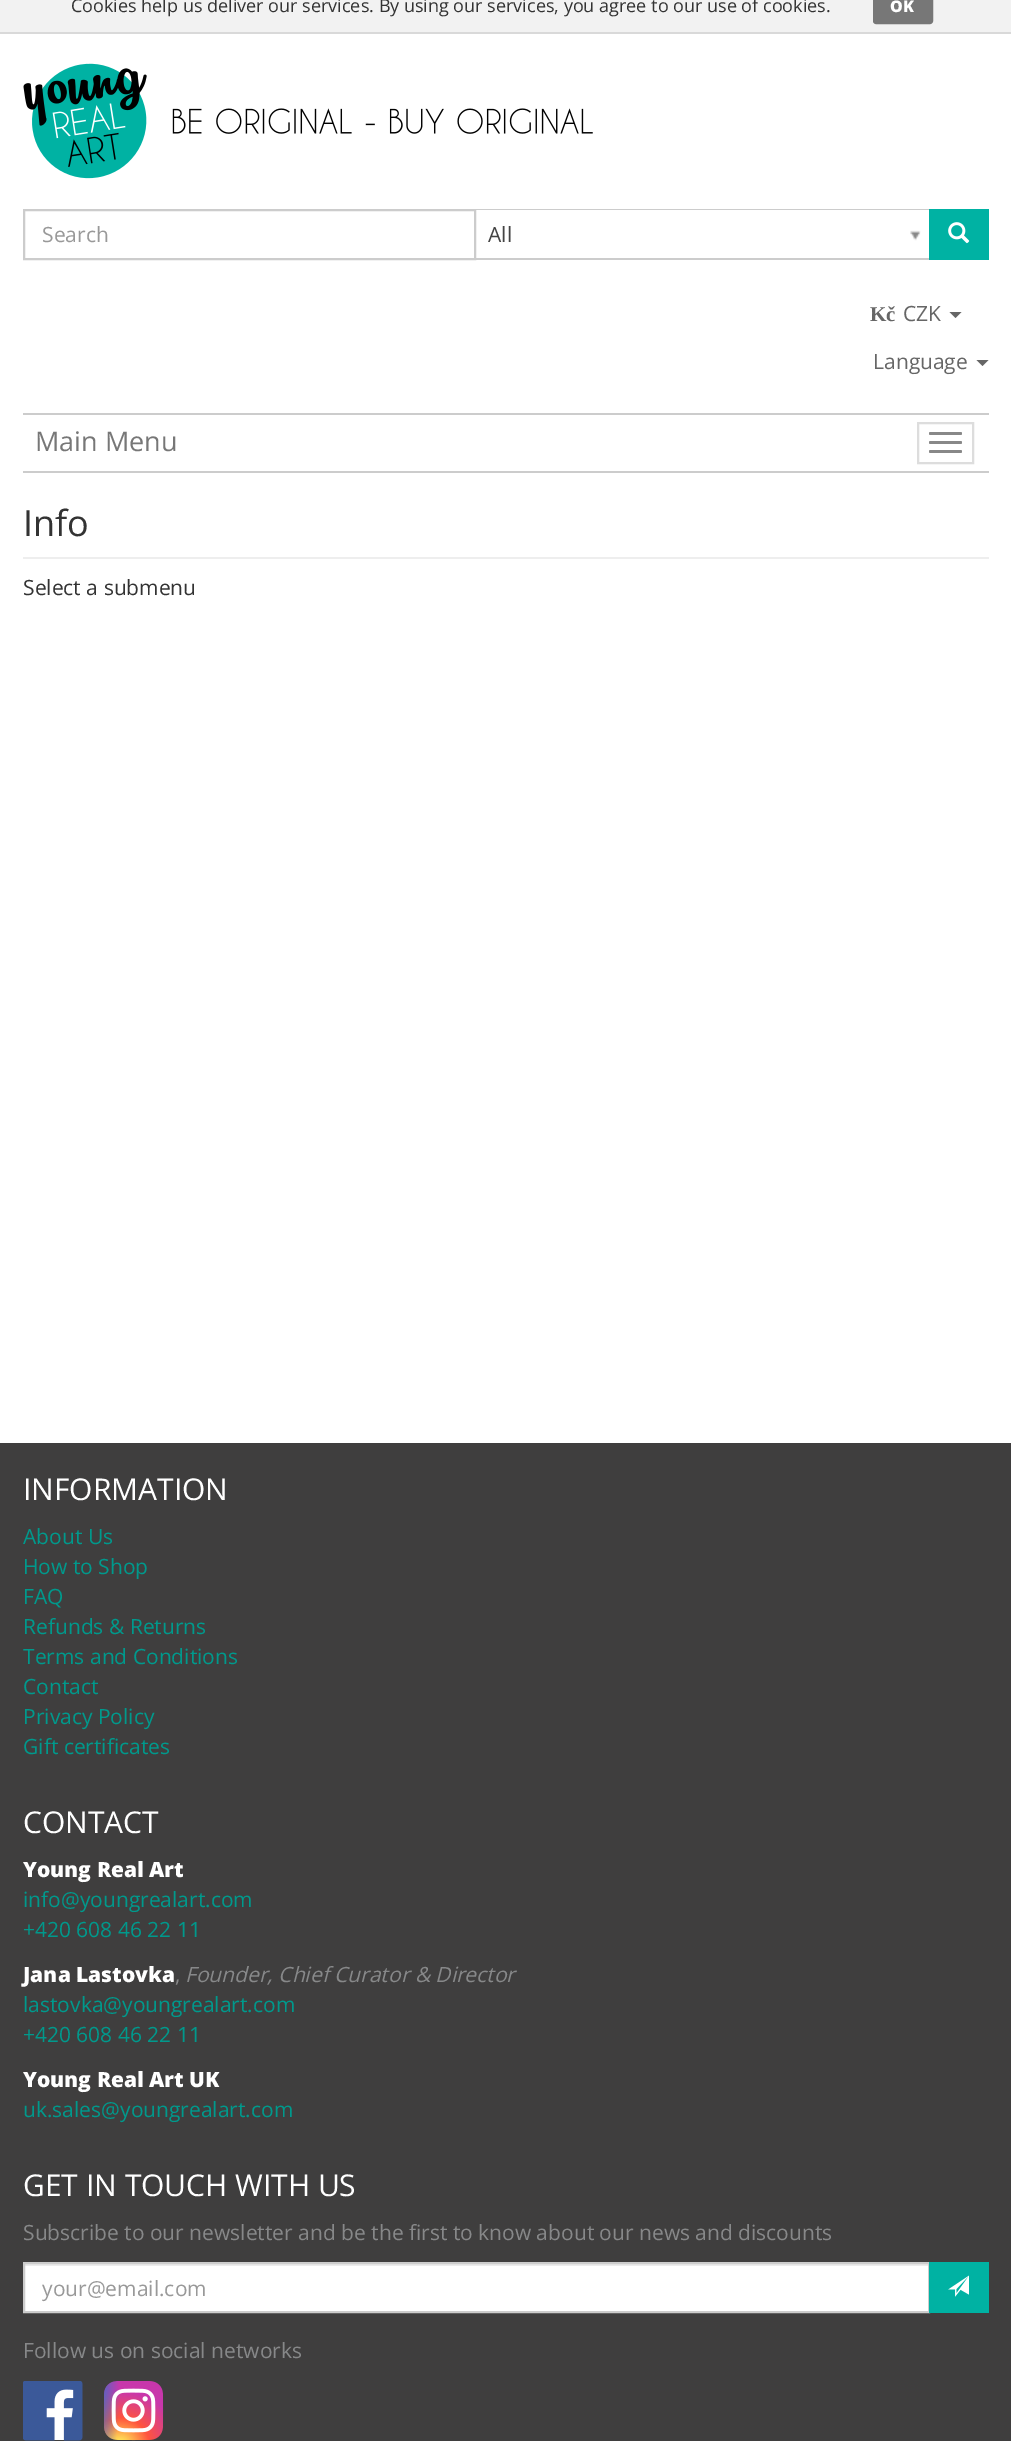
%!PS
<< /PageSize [1011 2455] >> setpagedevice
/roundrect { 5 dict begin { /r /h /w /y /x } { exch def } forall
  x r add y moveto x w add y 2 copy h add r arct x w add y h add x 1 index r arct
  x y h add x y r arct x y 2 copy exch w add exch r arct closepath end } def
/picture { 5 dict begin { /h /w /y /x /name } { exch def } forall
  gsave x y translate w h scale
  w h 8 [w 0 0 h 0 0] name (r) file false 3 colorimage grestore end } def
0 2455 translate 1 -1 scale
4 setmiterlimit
1 setgray
0 0 1011 2455 rectfill
0.949 setgray
0 0 1011 32 rectfill
0.851 setgray
0 32 1011 2 rectfill
/OpenSans-Regular [18 0 0 -18 0 0] selectfont
0.2 setgray
71 12 moveto (Cookies help us deliver our services. By using our services, you agree to our use of cookies.) show
0.467 setgray
874 -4 58 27 2 roundrect gsave fill grestore
2 setlinewidth
stroke
/OpenSans-ExtraBold [16 0 0 -16 0 0] selectfont
1 setgray
890 12 moveto (OK) show
(img1.rgb) 23 63 570 116 picture
0.8 setgray
24 210 451 49 rectstroke
/OpenSans-Regular [21 0 0 -21 0 0] selectfont
0.6 setgray
42 242 moveto (Search) show
0.8 setgray
476 209 454 1 rectfill
476 258 454 2 rectfill
0.267 setgray
488 242 moveto (All) show
(img2.rgb) 910 230 11 11 picture
0 0.698 0.639 setrgbcolor
929 209 60 51 rectfill
(img3.rgb) 948 222 22 22 picture
/LiberationSerif-Bold [21 0 0 -21 0 0] selectfont
0.4 setgray
870 321 moveto (Kč) show
/OpenSans-Regular [21 0 0 -21 0 0] selectfont
903 321 moveto (CZK) show
newpath 949.5 312 moveto 961.5 312 lineto 955.5 318 lineto closepath fill
873 369 moveto (Language) show
newpath 976.5 360 moveto 988.5 360 lineto 982.5 366 lineto closepath fill
0.8 setgray
23 413 966 2 rectfill
23 471 966 2 rectfill
/OpenSans-Regular [27 0 0 -27 0 0] selectfont
0.467 setgray
35 451 moveto (Main Menu) show
0.867 setgray
918 423 55 40 rectstroke
0.533 setgray
929 432 33 3 1.5 roundrect fill
929 441 33 3 1.5 roundrect fill
929 450 33 3 1.5 roundrect fill
0.933 setgray
23 557 966 2 rectfill
/OpenSans-Regular [36 0 0 -36 0 0] selectfont
0.2 setgray
23 536 moveto (Info) show
/OpenSans-Regular [21 0 0 -21 0 0] selectfont
23 595 moveto (Select a submenu) show
0.247 0.243 0.243 setrgbcolor
0 1443 1011 998 rectfill
/OpenSans-Regular [30 0 0 -30 0 0] selectfont
1 setgray
23 1500 moveto (INFORMATION) show
/OpenSans-Regular [21 0 0 -21 0 0] selectfont
0 0.6 0.549 setrgbcolor
23 1544 moveto (About Us) show
23 1574 moveto (How to Shop) show
23 1604 moveto (FAQ) show
23 1634 moveto (Refunds & Returns) show
23 1664 moveto (Terms and Conditions) show
23 1694 moveto (Contact) show
23 1724 moveto (Privacy Policy) show
23 1754 moveto (Gift certificates) show
/OpenSans-Regular [30 0 0 -30 0 0] selectfont
1 setgray
23 1833 moveto (CONTACT) show
/OpenSans-ExtraBold [21 0 0 -21 0 0] selectfont
23 1877 moveto (Young Real Art) show
/OpenSans-Regular [21 0 0 -21 0 0] selectfont
0 0.6 0.549 setrgbcolor
23 1907 moveto (info@youngrealart.com) show
23 1937 moveto (+420 608 46 22 11) show
/OpenSans-ExtraBold [21 0 0 -21 0 0] selectfont
1 setgray
23 1982 moveto (Jana Lastovka) show
/OpenSans-Regular [21 0 0 -21 0 0] selectfont
0.529 0.533 0.537 setrgbcolor
175 1982 moveto (,) show
/OpenSans-Italic [21 0 0 -21 0 0] selectfont
185 1982 moveto (Founder, Chief Curator & Director) show
/OpenSans-Regular [21 0 0 -21 0 0] selectfont
0 0.6 0.549 setrgbcolor
23 2012 moveto (lastovka@youngrealart.com) show
23 2042 moveto (+420 608 46 22 11) show
/OpenSans-ExtraBold [21 0 0 -21 0 0] selectfont
1 setgray
23 2087 moveto (Young Real Art UK) show
/OpenSans-Regular [21 0 0 -21 0 0] selectfont
0 0.6 0.549 setrgbcolor
23 2117 moveto (uk.sales@youngrealart.com) show
/OpenSans-Regular [30 0 0 -30 0 0] selectfont
1 setgray
23 2196 moveto (GET IN TOUCH WITH US) show
/OpenSans-Regular [21 0 0 -21 0 0] selectfont
0.529 0.533 0.537 setrgbcolor
23 2240 moveto (Subscribe to our newsletter and be the first to know about our news and discounts) show
1 setgray
25 2266 903 45 rectfill
0.925 setgray
24 2264 905 2 rectfill
0.8 setgray
24 2263 905 49 rectstroke
0.6 setgray
42 2296 moveto (your@email.com) show
0 0.698 0.639 setrgbcolor
929 2262 60 51 rectfill
(img4.rgb) 948 2275 21 22 picture
0.529 0.533 0.537 setrgbcolor
23 2358 moveto (Follow us on social networks) show
(img5.rgb) 23 2381 60 60 picture
(img6.rgb) 104 2381 60 60 picture
showpage
